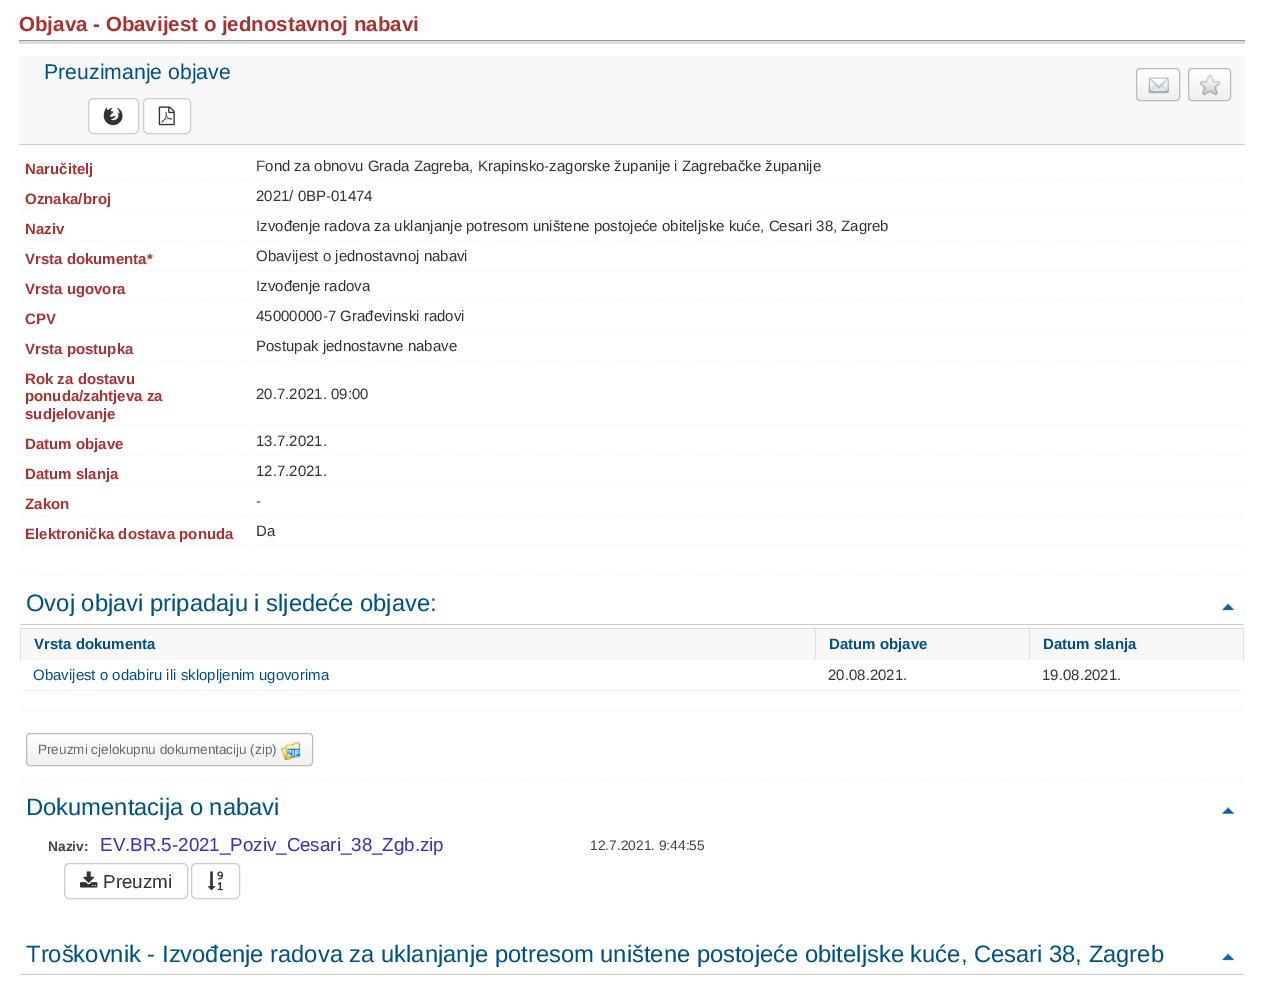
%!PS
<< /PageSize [1263 988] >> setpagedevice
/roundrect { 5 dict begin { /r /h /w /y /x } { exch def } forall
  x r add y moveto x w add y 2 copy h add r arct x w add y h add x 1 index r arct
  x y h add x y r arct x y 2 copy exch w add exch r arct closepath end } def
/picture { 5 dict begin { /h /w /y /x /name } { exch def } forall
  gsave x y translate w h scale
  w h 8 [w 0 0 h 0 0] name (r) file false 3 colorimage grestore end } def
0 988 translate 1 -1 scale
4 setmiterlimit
1 setgray
0 0 1263 988 rectfill
0.867 setgray
19 41 1226 3 rectfill
0.6 setgray
19 40 1226 1 rectfill
/LiberationSans-Bold [20.5 0 0 -20.5 0 0] selectfont
0.663 0.192 0.196 setrgbcolor
19 31 moveto (Objava - Obavijest o jednostavnoj nabavi) show
0.973 setgray
19 56 1226 88 rectfill
0.8 setgray
19 144 1226 1 rectfill
/LiberationSans-Regular [21.25 0 0 -21.25 0 0] selectfont
0 0.318 0.514 setrgbcolor
44 79 moveto (Preuzimanje objave) show
1 setgray
88.5 98.5 50 35 4.5 roundrect gsave fill grestore
0.8 setgray
stroke
(img1.rgb) 103 107 20 19 picture
1 setgray
143.5 98.5 47 35 4.5 roundrect gsave fill grestore
0.8 setgray
stroke
(img2.rgb) 158 106 17 20 picture
(img3.rgb) 1136 69 44 32 picture
0.733 setgray
1136.5 68.5 43 32 3.5 roundrect stroke
(img4.rgb) 1148 77 21 17 picture
(img5.rgb) 1188 69 43 32 picture
1188.5 68.5 42 32 3.5 roundrect stroke
(img6.rgb) 1200 75 20 20 picture
0.961 setgray
1.2 setlinewidth
[1.25 1.25] 0 setdash
newpath 20 180.5 moveto 255 180.5 lineto stroke
/LiberationSans-Bold [15 0 0 -15 0 0] selectfont
0.663 0.192 0.196 setrgbcolor
25 174 moveto (Naručitelj) show
0.961 setgray
newpath 256 180.5 moveto 1244 180.5 lineto stroke
/LiberationSans-Regular [15 0 0 -15 0 0] selectfont
0.2 setgray
256 171 moveto (Fond za obnovu Grada Zagreba, Krapinsko-zagorske županije i Zagrebačke županije) show
0.961 setgray
newpath 20 210.5 moveto 255 210.5 lineto stroke
/LiberationSans-Bold [15 0 0 -15 0 0] selectfont
0.663 0.192 0.196 setrgbcolor
25 204 moveto (Oznaka/broj) show
0.961 setgray
newpath 256 210.5 moveto 1244 210.5 lineto stroke
/LiberationSans-Regular [15 0 0 -15 0 0] selectfont
0.2 setgray
256 201 moveto (2021/ 0BP-01474) show
0.961 setgray
newpath 20 240.5 moveto 255 240.5 lineto stroke
/LiberationSans-Bold [15 0 0 -15 0 0] selectfont
0.663 0.192 0.196 setrgbcolor
25 234 moveto (Naziv) show
0.961 setgray
newpath 256 240.5 moveto 1244 240.5 lineto stroke
/LiberationSans-Regular [15 0 0 -15 0 0] selectfont
0.2 setgray
256 231 moveto (Izvođenje radova za uklanjanje potresom uništene postojeće obiteljske kuće, Cesari 38, Zagreb) show
0.961 setgray
newpath 20 270.5 moveto 255 270.5 lineto stroke
/LiberationSans-Bold [15 0 0 -15 0 0] selectfont
0.663 0.192 0.196 setrgbcolor
25 264 moveto (Vrsta dokumenta*) show
0.961 setgray
newpath 256 270.5 moveto 1244 270.5 lineto stroke
/LiberationSans-Regular [15 0 0 -15 0 0] selectfont
0.2 setgray
256 261 moveto (Obavijest o jednostavnoj nabavi) show
0.961 setgray
newpath 20 300.5 moveto 255 300.5 lineto stroke
/LiberationSans-Bold [15 0 0 -15 0 0] selectfont
0.663 0.192 0.196 setrgbcolor
25 294 moveto (Vrsta ugovora) show
0.961 setgray
newpath 256 300.5 moveto 1244 300.5 lineto stroke
/LiberationSans-Regular [15 0 0 -15 0 0] selectfont
0.2 setgray
256 291 moveto (Izvođenje radova) show
0.961 setgray
newpath 20 330.5 moveto 255 330.5 lineto stroke
/LiberationSans-Bold [15 0 0 -15 0 0] selectfont
0.663 0.192 0.196 setrgbcolor
25 324 moveto (CPV) show
0.961 setgray
newpath 256 330.5 moveto 1244 330.5 lineto stroke
/LiberationSans-Regular [15 0 0 -15 0 0] selectfont
0.2 setgray
256 321 moveto (45000000-7 Građevinski radovi) show
0.961 setgray
newpath 20 360.5 moveto 255 360.5 lineto stroke
/LiberationSans-Bold [15 0 0 -15 0 0] selectfont
0.663 0.192 0.196 setrgbcolor
25 354 moveto (Vrsta postupka) show
0.961 setgray
newpath 256 360.5 moveto 1244 360.5 lineto stroke
/LiberationSans-Regular [15 0 0 -15 0 0] selectfont
0.2 setgray
256 351 moveto (Postupak jednostavne nabave) show
0.961 setgray
newpath 20 425.5 moveto 255 425.5 lineto stroke
/LiberationSans-Bold [15 0 0 -15 0 0] selectfont
0.663 0.192 0.196 setrgbcolor
25 384 moveto (Rok za dostavu) show
25 401 moveto (ponuda/zahtjeva za) show
25 419 moveto (sudjelovanje) show
0.961 setgray
newpath 256 425.5 moveto 1244 425.5 lineto stroke
/LiberationSans-Regular [15 0 0 -15 0 0] selectfont
0.2 setgray
256 399 moveto (20.7.2021. 09:00) show
0.961 setgray
newpath 20 455.5 moveto 255 455.5 lineto stroke
/LiberationSans-Bold [15 0 0 -15 0 0] selectfont
0.663 0.192 0.196 setrgbcolor
25 449 moveto (Datum objave) show
0.961 setgray
newpath 256 455.5 moveto 1244 455.5 lineto stroke
/LiberationSans-Regular [15 0 0 -15 0 0] selectfont
0.2 setgray
256 446 moveto (13.7.2021.) show
0.961 setgray
newpath 20 485.5 moveto 255 485.5 lineto stroke
/LiberationSans-Bold [15 0 0 -15 0 0] selectfont
0.663 0.192 0.196 setrgbcolor
25 479 moveto (Datum slanja) show
0.961 setgray
newpath 256 485.5 moveto 1244 485.5 lineto stroke
/LiberationSans-Regular [15 0 0 -15 0 0] selectfont
0.2 setgray
256 476 moveto (12.7.2021.) show
0.961 setgray
newpath 20 515.5 moveto 255 515.5 lineto stroke
/LiberationSans-Bold [15 0 0 -15 0 0] selectfont
0.663 0.192 0.196 setrgbcolor
25 509 moveto (Zakon) show
0.961 setgray
newpath 256 515.5 moveto 1244 515.5 lineto stroke
/LiberationSans-Regular [15 0 0 -15 0 0] selectfont
0.2 setgray
256 506 moveto (-) show
0.961 setgray
newpath 20 545.5 moveto 255 545.5 lineto stroke
/LiberationSans-Bold [15 0 0 -15 0 0] selectfont
0.663 0.192 0.196 setrgbcolor
25 539 moveto (Elektronička dostava ponuda) show
0.961 setgray
newpath 256 545.5 moveto 1244 545.5 lineto stroke
/LiberationSans-Regular [15 0 0 -15 0 0] selectfont
0.2 setgray
256 536 moveto (Da) show
0.961 setgray
newpath 20 575.5 moveto 255 575.5 lineto stroke
newpath 256 575.5 moveto 1244 575.5 lineto stroke
newpath 20 710.5 moveto 1244 710.5 lineto stroke
0.8 setgray
20 624 1224 1 rectfill
/LiberationSans-Regular [23.75 0 0 -23.75 0 0] selectfont
0 0.318 0.514 setrgbcolor
26 611 moveto (Ovoj objavi pripadaju i sljedeće objave:) show
(img7.rgb) 1222 603 12 8 picture
0.973 setgray
21 629 1222 30 rectfill
0.867 setgray
1029 628 215 1 rectfill
1243 628 1 32 rectfill
0.957 setgray
1029 659 215 1 rectfill
0.867 setgray
1029 628 1 32 rectfill
815 628 215 1 rectfill
0.957 setgray
815 659 215 1 rectfill
0.867 setgray
815 628 1 32 rectfill
20 628 796 1 rectfill
0.957 setgray
20 659 796 1 rectfill
0.867 setgray
20 628 1 32 rectfill
/LiberationSans-Bold [15 0 0 -15 0 0] selectfont
0 0.318 0.514 setrgbcolor
34 649 moveto (Vrsta dokumenta) show
829 649 moveto (Datum objave) show
1043 649 moveto (Datum slanja) show
/LiberationSans-Regular [15 0 0 -15 0 0] selectfont
33 680 moveto (Obavijest o odabiru ili sklopljenim ugovorima) show
0.2 setgray
828 680 moveto (20.08.2021.) show
0.961 setgray
20 690 1224 1 rectfill
0.2 setgray
1042 680 moveto (19.08.2021.) show
0.961 setgray
newpath 20 779.5 moveto 1244 779.5 lineto stroke
(img8.rgb) 26 734 286 32 picture
0.733 setgray
1 setlinewidth
[] 0 setdash
26.5 733.5 286 32 3.5 roundrect stroke
(img9.rgb) 281 741 20 19 picture
/LiberationSans-Regular [13.5 0 0 -13.5 0 0] selectfont
0.4 setgray
38 754 moveto (Preuzmi cjelokupnu dokumentaciju \(zip\)) show
/LiberationSans-Regular [23.75 0 0 -23.75 0 0] selectfont
0 0.318 0.514 setrgbcolor
26 815 moveto (Dokumentacija o nabavi) show
(img10.rgb) 1222 807 12 7 picture
/LiberationSans-Bold [13.75 0 0 -13.75 0 0] selectfont
0.267 setgray
48 851 moveto (Naziv:) show
/LiberationSans-Regular [18.75 0 0 -18.75 0 0] selectfont
0.204 0.204 0.729 setrgbcolor
100 851 moveto (EV.BR.5-2021_Poziv_Cesari_38_Zgb.zip) show
/LiberationSans-Regular [13.75 0 0 -13.75 0 0] selectfont
0.267 setgray
590 850 moveto (12.7.2021. 9:44:55) show
0.8 setgray
64.5 863.5 123 35 4.5 roundrect stroke
(img11.rgb) 80 871 18 17 picture
/LiberationSans-Regular [18.75 0 0 -18.75 0 0] selectfont
0.2 setgray
103 888 moveto (Preuzmi) show
0.8 setgray
191.5 863.5 48 35 4.5 roundrect stroke
(img12.rgb) 207 871 16 20 picture
20 974 1224 1 rectfill
/LiberationSans-Regular [23.75 0 0 -23.75 0 0] selectfont
0 0.318 0.514 setrgbcolor
26 962 moveto (Troškovnik - Izvođenje radova za uklanjanje potresom uništene postojeće obiteljske kuće, Cesari 38, Zagreb) show
(img7.rgb) 1222 953 12 8 picture
showpage
